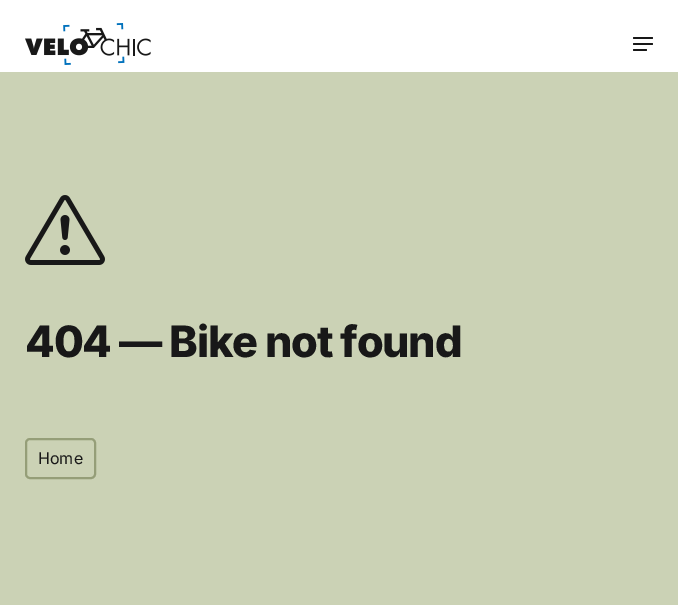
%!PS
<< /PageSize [678 605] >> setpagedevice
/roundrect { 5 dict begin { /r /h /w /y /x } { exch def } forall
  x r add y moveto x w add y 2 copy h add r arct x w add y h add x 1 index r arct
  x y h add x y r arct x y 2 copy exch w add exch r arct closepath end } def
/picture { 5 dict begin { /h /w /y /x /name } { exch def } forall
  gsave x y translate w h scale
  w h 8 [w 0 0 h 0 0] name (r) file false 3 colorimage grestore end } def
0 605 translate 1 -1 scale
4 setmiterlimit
0.796 0.824 0.71 setrgbcolor
0 0 678 605 rectfill
1 setgray
0 0 678 72 rectfill
(img1.rgb) 25 23 126 42 picture
0.094 setgray
633 37 20 2 1 roundrect fill
633 43 20 2 1 roundrect fill
633 49 14 2 1 roundrect fill
(img2.rgb) 25 195 80 70 picture
/Inter-ExtraBold [43.25 0 0 -43.25 0 0] selectfont
25 357 moveto -1.25 0 (404 — Bike not found) ashow
0.584 0.62 0.471 setrgbcolor
2 setlinewidth
26 439 69 39 4 roundrect stroke
/Inter-Regular [16 0 0 -16 0 0] selectfont
0.094 setgray
38 464 moveto (Home) show
showpage
